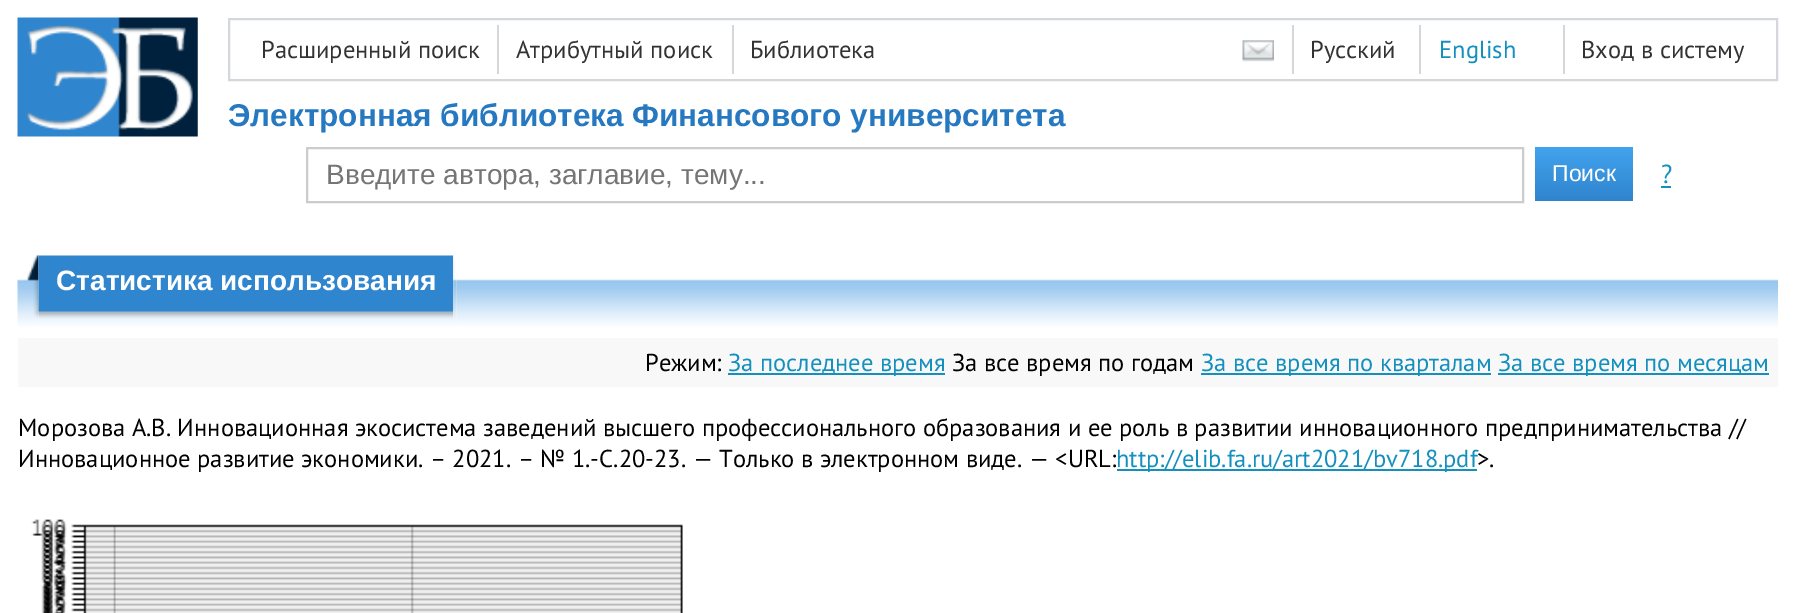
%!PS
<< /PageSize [1795 613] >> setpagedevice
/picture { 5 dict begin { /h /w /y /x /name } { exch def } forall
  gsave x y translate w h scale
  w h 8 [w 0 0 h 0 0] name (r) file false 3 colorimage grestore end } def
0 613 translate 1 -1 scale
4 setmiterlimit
1 setgray
0 0 1795 613 rectfill
(img1.rgb) 17 17 181 120 picture
0.835 0.847 0.859 setrgbcolor
2 setlinewidth
229 19 1548 61 rectstroke
/PTSans-Regular [24.5 0 0 -24.5 0 0] selectfont
0.2 setgray
261 58 moveto (Расширенный поиск) show
0.835 0.847 0.859 setrgbcolor
497 25 2 49 rectfill
0.2 setgray
516 58 moveto (Атрибутный поиск) show
0.835 0.847 0.859 setrgbcolor
732 25 2 49 rectfill
0.2 setgray
750 58 moveto (Библиотека) show
(img2.rgb) 1242 40 32 22 picture
1310 58 moveto (Русский) show
0.835 0.847 0.859 setrgbcolor
1292 25 2 49 rectfill
0.075 0.565 0.745 setrgbcolor
1439 58 moveto (English) show
0.835 0.847 0.859 setrgbcolor
1419 25 2 49 rectfill
0.2 setgray
1581 58 moveto (Вход в систему) show
0.835 0.847 0.859 setrgbcolor
1563 25 2 49 rectfill
/LiberationSans-Bold [31.5 0 0 -31.5 0 0] selectfont
0.149 0.475 0.753 setrgbcolor
228 126 moveto (Электронная библиотека Финансового университета) show
0.8 setgray
307 148 1216 54 rectstroke
/LiberationSans-Regular [28 0 0 -28 0 0] selectfont
0.459 setgray
326 184 moveto (Введите автора, заглавие, тему...) show
gsave newpath 1535 147 moveto 1633 147 lineto 1633 201 lineto 1535 201 lineto closepath clip newpath
<< /ShadingType 2 /ColorSpace /DeviceRGB /Coords [1584 147 1584 201] /Extend [true true] /Function << /FunctionType 2 /Domain [0 1] /C0 [0.259 0.639 0.929] /C1 [0.188 0.518 0.808] /N 1 >> >> shfill grestore
/LiberationSans-Regular [23 0 0 -23 0 0] selectfont
1 setgray
1552 181 moveto (Поиск) show
/PTSans-Regular [26 0 0 -26 0 0] selectfont
0.075 0.565 0.745 setrgbcolor
1661 183 moveto (?) show
1661 186 10 2 rectfill
(img3.rgb) 17 255 22 72 picture
(img4.rgb) 38 255 416 72 picture
/LiberationSans-Bold [28 0 0 -28 0 0] selectfont
1 setgray
56 290 moveto (Статистика использования) show
(img5.rgb) 453 255 4 72 picture
(img6.rgb) 456 279 1322 48 picture
0.973 setgray
18 338 1760 49 rectfill
/PTSans-Regular [24.5 0 0 -24.5 0 0] selectfont
0 setgray
645 371 moveto (Режим:) show
0.075 0.565 0.745 setrgbcolor
728 373 217 2 rectfill
728 371 moveto (За последнее время) show
0 setgray
952 371 moveto (За все время по годам) show
0.075 0.565 0.745 setrgbcolor
1201 373 290 2 rectfill
1201 371 moveto (За все время по кварталам) show
1498 373 271 2 rectfill
1498 371 moveto (За все время по месяцам) show
0 setgray
18 436 moveto (Морозова А.В. Инновационная экосистема заведений высшего профессионального образования и ее роль в развитии инновационного предпринимательства //) show
18 467 moveto (Инновационное развитие экономики. – 2021. – № 1.-С.20-23. — Только в электронном виде. — <URL:) show
0.075 0.565 0.745 setrgbcolor
1117 469 360 2 rectfill
1116 467 moveto (http://elib.fa.ru/art2021/bv718.pdf) show
0 setgray
1477 467 moveto (>.) show
(img7.rgb) 31 519 652 94 picture
showpage
